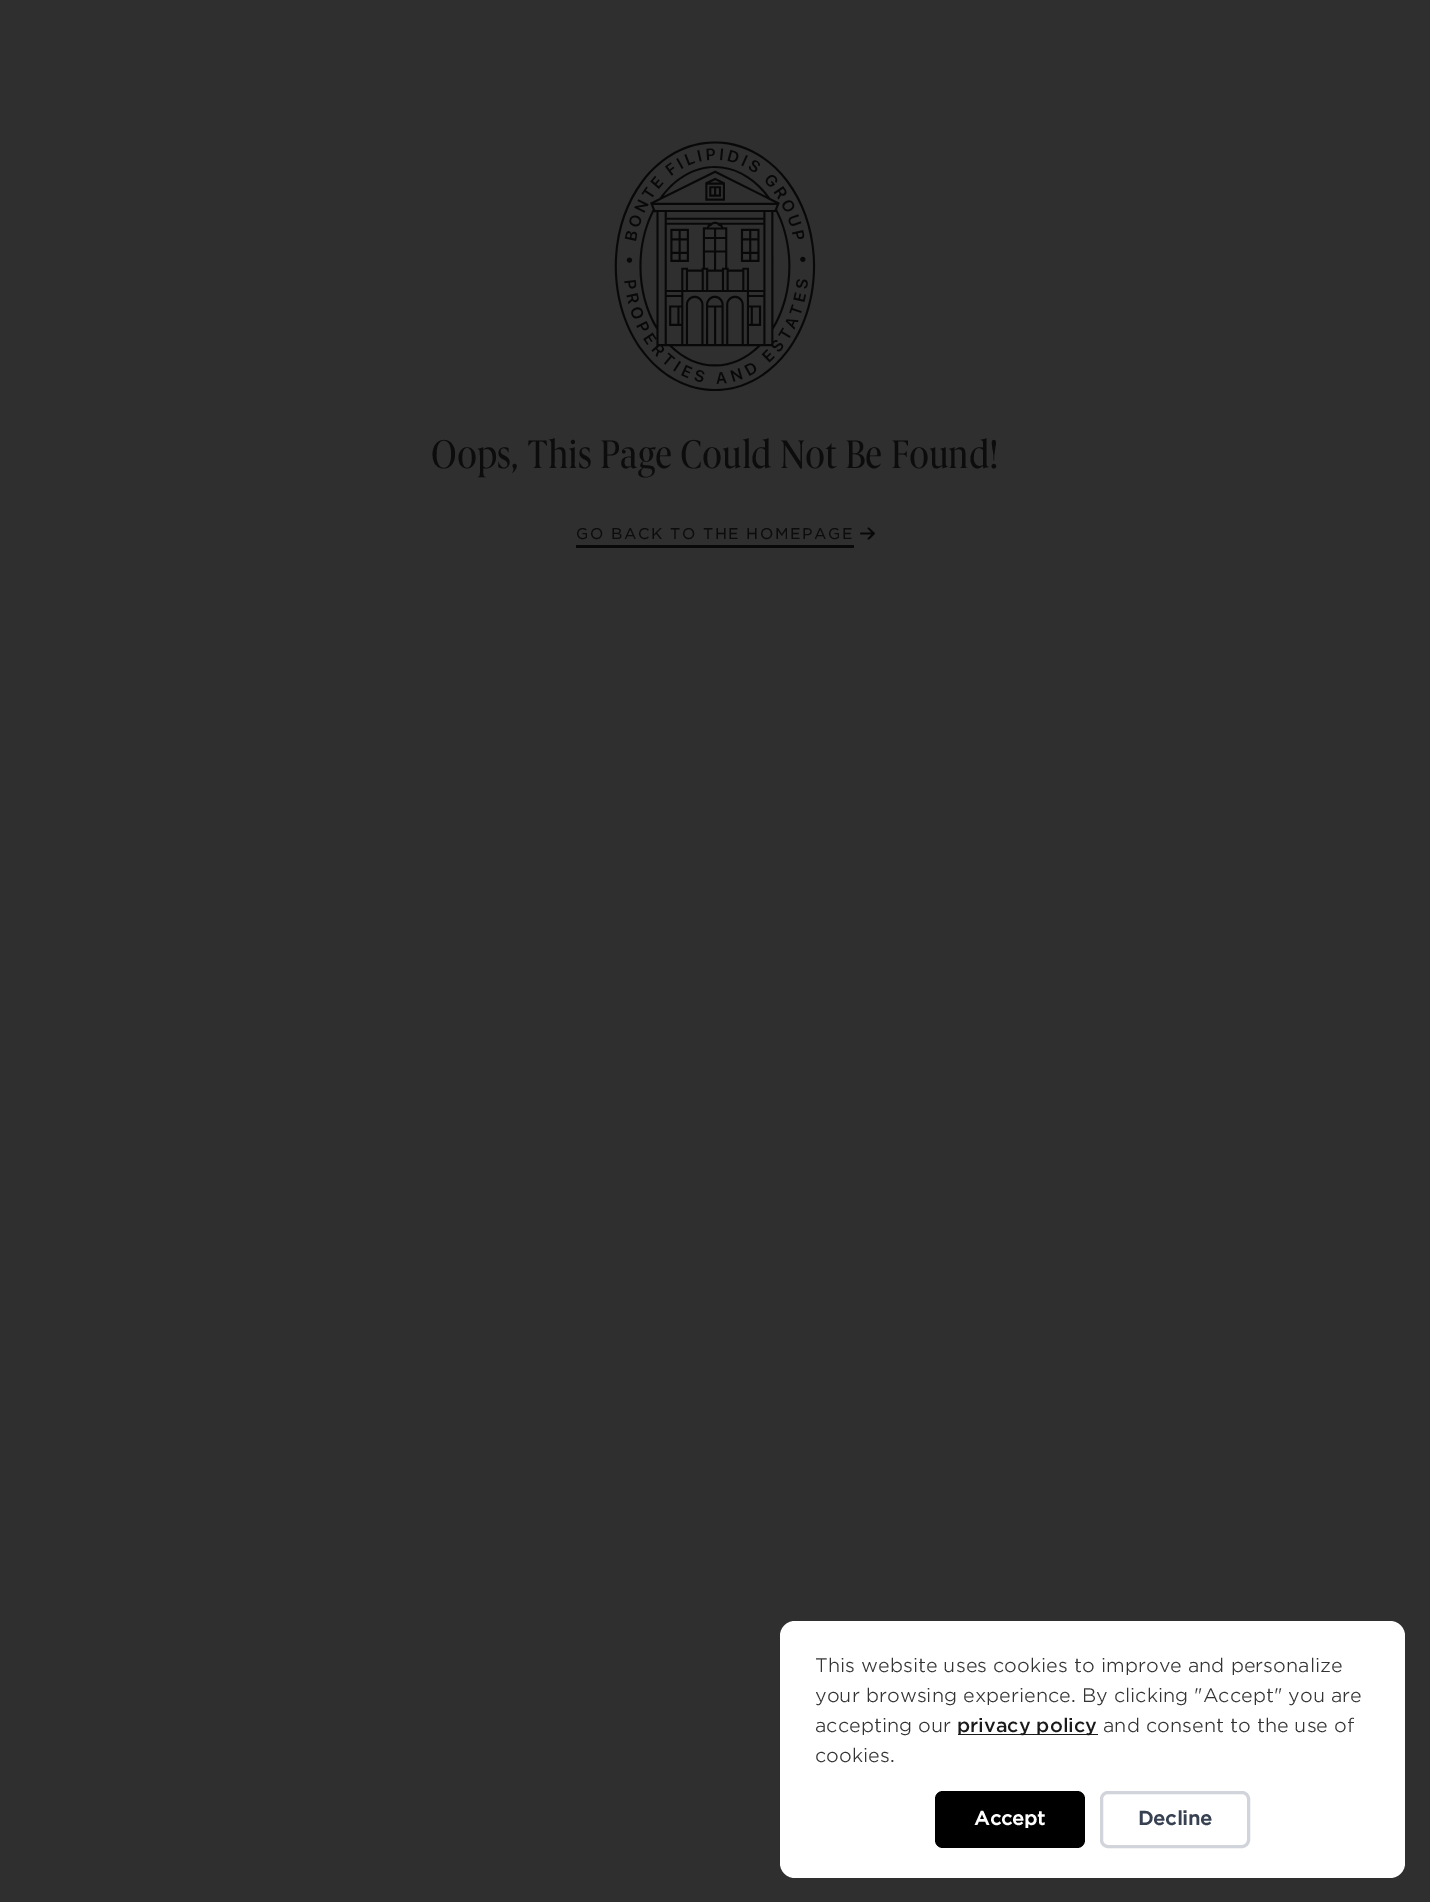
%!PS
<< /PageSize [1430 1902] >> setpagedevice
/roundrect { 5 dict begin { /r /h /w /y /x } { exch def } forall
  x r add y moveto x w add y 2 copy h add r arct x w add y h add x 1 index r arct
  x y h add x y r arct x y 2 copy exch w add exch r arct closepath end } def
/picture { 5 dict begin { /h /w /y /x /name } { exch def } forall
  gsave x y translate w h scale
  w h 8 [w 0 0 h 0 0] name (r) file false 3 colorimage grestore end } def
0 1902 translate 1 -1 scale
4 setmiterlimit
0.184 setgray
0 0 1430 1902 rectfill
(img1.rgb) 614 141 202 250 picture
/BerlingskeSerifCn-Regular [40 0 0 -40 0 0] selectfont
0.047 setgray
431 468 moveto (Oops, This Page Could Not Be Found!) show
0.035 setgray
576 545 278 3 rectfill
/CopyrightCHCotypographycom-Light [15 0 0 -15 0 0] selectfont
0.047 setgray
576 539 moveto 1.5 0 (GO BACK TO THE HOMEPAGE) ashow
(img2.rgb) 860 527 15 13 picture
1 setgray
780 1621 625 257 15 roundrect fill
/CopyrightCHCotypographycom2-Light [18.75 0 0 -18.75 0 0] selectfont
0.2 setgray
815 1672 moveto (This website uses cookies to improve and personalize) show
815 1702 moveto (your browsing experience. By clicking "Accept" you are) show
815 1732 moveto (accepting our) show
0.102 setgray
958 1734 140 1 rectfill
/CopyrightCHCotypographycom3-Light [18.75 0 0 -18.75 0 0] selectfont
957 1732 moveto (privacy policy) show
/CopyrightCHCotypographycom2-Light [18.75 0 0 -18.75 0 0] selectfont
0.2 setgray
1103 1732 moveto (and consent to the use of) show
815 1762 moveto (cookies.) show
0 setgray
935 1791 150 57 8 roundrect fill
/CopyrightCHCotypographycom-Bold [18.75 0 0 -18.75 0 0] selectfont
1 setgray
974 1825 moveto (Accept) show
0.82 0.835 0.859 setrgbcolor
3 setlinewidth
1101.5 1792.5 147 54 6.5 roundrect stroke
0.216 0.255 0.318 setrgbcolor
1138 1825 moveto (Decline) show
showpage
